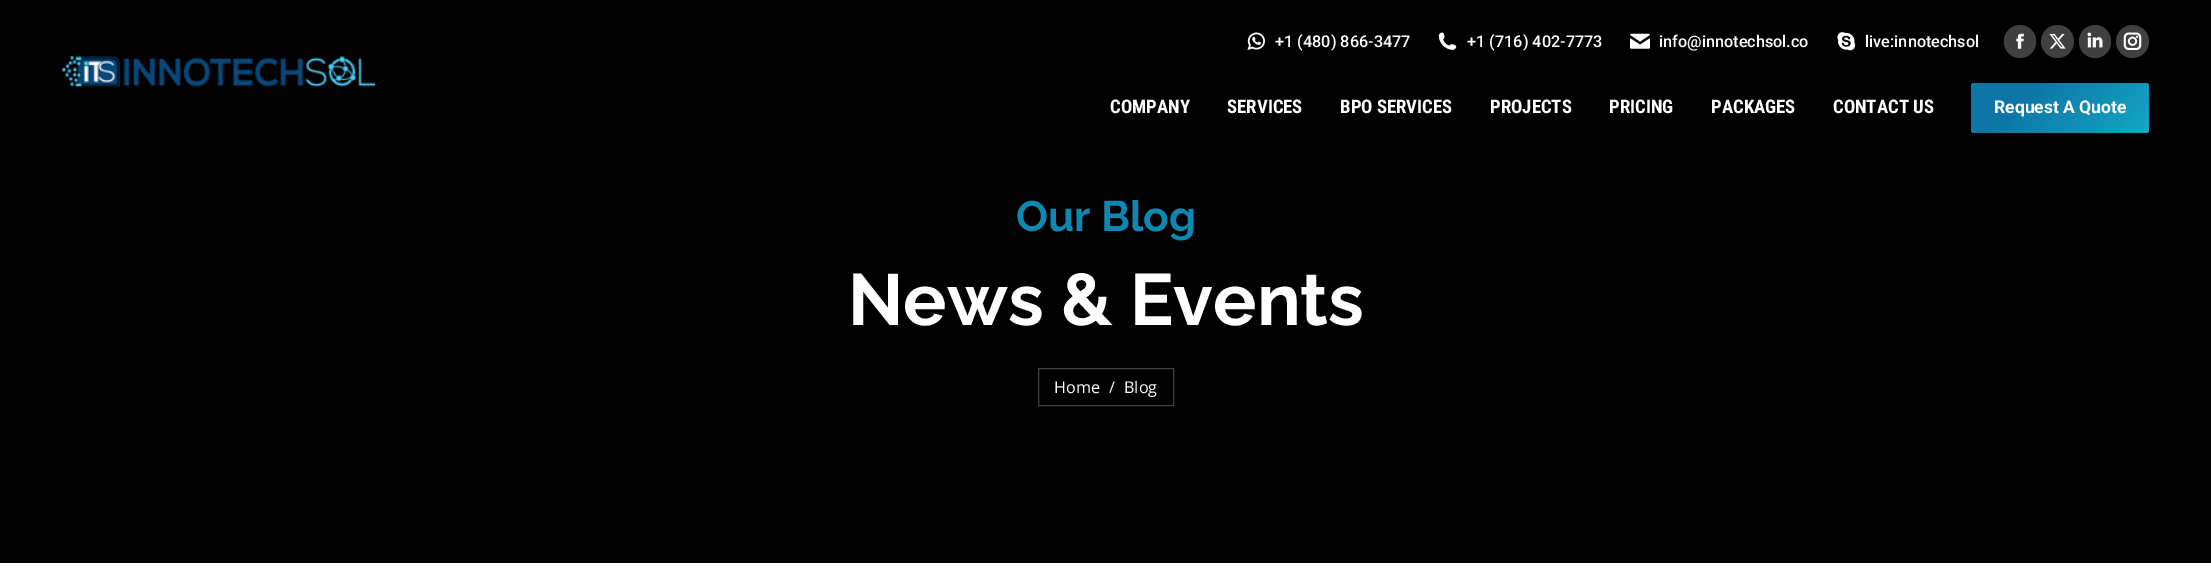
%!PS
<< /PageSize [2211 568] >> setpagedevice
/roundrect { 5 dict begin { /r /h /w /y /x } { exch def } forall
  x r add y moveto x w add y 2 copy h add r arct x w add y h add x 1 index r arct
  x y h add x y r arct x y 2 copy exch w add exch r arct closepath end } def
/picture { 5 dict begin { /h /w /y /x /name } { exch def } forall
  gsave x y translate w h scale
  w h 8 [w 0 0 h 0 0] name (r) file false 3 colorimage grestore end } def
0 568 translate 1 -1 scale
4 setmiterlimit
1 setgray
0 0 2211 568 rectfill
0 setgray
0 0 2211 563 rectfill
(img1.rgb) 1247 32 18 18 picture
/Roboto-Medium [16.25 0 0 -16.25 0 0] selectfont
1 setgray
1275 47 moveto (+1 \(480\) 866-3477) show
(img2.rgb) 1438 32 19 18 picture
1467 47 moveto (+1 \(716\) 402-7773) show
(img3.rgb) 1630 33 20 16 picture
1659 47 moveto (info@innotechsol.co) show
(img4.rgb) 1837 32 19 19 picture
1865 47 moveto (live:innotechsol) show
0.251 setgray
2004 25 32 33 16 roundrect fill
(img5.rgb) 2016 33 8 16 picture
newpath 2057.5 41.5 16.5 0 360 arc closepath fill
(img6.rgb) 2049 33 17 16 picture
2079 25 32 33 16 roundrect fill
(img7.rgb) 2087 32 16 16 picture
newpath 2132.5 41.5 16.5 0 360 arc closepath fill
(img8.rgb) 2123 32 19 18 picture
(img9.rgb) 62 56 313 31 picture
/RobotoCondensed-Bold [18.75 0 0 -18.75 0 0] selectfont
1 setgray
1110 113 moveto (COMPANY) show
1227 113 moveto (SERVICES) show
1340 113 moveto (BPO SERVICES) show
1490 113 moveto (PROJECTS) show
1609 113 moveto (PRICING) show
1711 113 moveto (PACKAGES) show
1833 113 moveto (CONTACT US) show
gsave 1971 83 178 50 4 roundrect clip newpath
<< /ShadingType 2 /ColorSpace /DeviceRGB /Coords [2003 51 2117 164] /Extend [true true] /Function << /FunctionType 3 /Domain [0 1] /Functions [<< /FunctionType 2 /Domain [0 1] /C0 [0.051 0.463 0.651] /C1 [0.051 0.463 0.651] /N 1 >> << /FunctionType 2 /Domain [0 1] /C0 [0.051 0.463 0.651] /C1 [0.075 0.659 0.776] /N 1 >>] /Bounds [0.3] /Encode [0 1 0 1] >> >> shfill grestore
/Roboto-Bold [17.5 0 0 -17.5 0 0] selectfont
1994 113 moveto (Request A Quote) show
/Raleway-Bold [42.5 0 0 -42.5 0 0] selectfont
0.059 0.533 0.694 setrgbcolor
1016 231 moveto (Our Blog) show
/Raleway-Bold [72.5 0 0 -72.5 0 0] selectfont
1 setgray
848 325 moveto (News & Events) show
0.251 setgray
1038.5 368.5 135 37 rectstroke
/OpenSans-Regular [16.25 0 0 -16.25 0 0] selectfont
1 setgray
1054 393 moveto (Home) show
1109 393 moveto (/) show
1124 393 moveto (Blog) show
showpage
